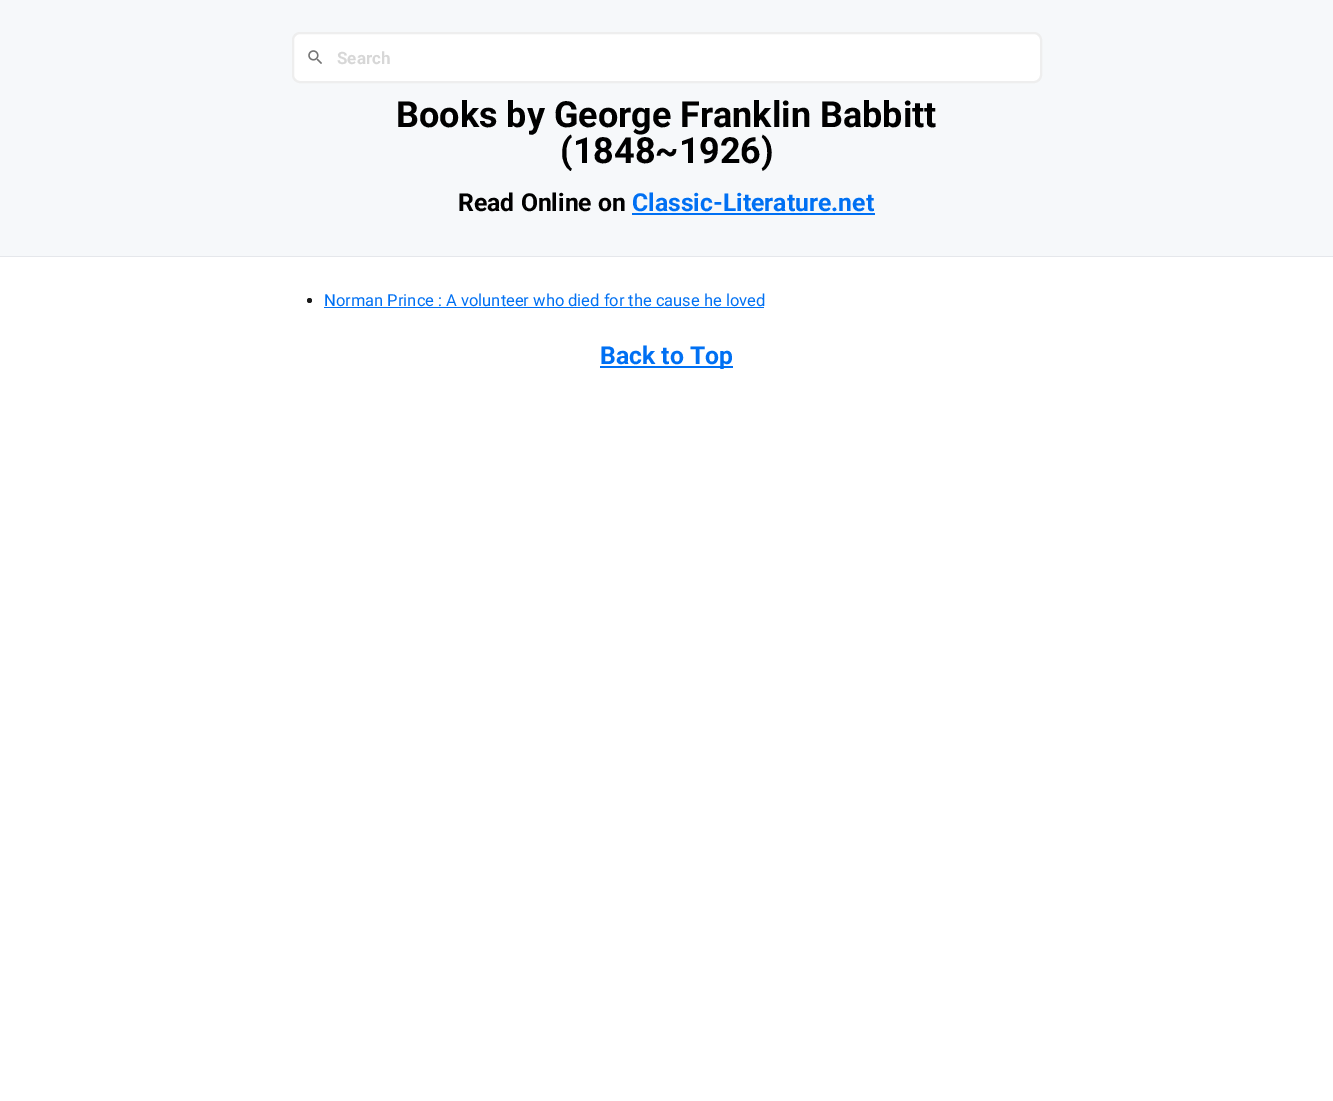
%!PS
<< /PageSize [1333 1101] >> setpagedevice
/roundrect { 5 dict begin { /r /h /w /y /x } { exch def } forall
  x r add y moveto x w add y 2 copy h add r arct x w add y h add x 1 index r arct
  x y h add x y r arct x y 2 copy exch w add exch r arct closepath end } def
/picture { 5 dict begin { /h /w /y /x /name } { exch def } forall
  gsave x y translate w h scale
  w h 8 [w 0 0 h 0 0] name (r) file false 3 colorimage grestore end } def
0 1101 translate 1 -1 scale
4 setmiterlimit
1 setgray
0 0 1333 1101 rectfill
0.965 0.973 0.98 setrgbcolor
0 0 1333 256 rectfill
0.898 0.906 0.922 setrgbcolor
0 256 1333 1 rectfill
1 setgray
293 33 748 49 7 roundrect gsave fill grestore
0.933 setgray
2 setlinewidth
stroke
(img1.rgb) 308 50 14 14 picture
/Roboto-Bold [17 0 0 -17 0 0] selectfont
0.843 setgray
337 64 moveto (Search) show
/Roboto-Bold [36 0 0 -36 0 0] selectfont
0 setgray
396 127 moveto (Books by George Franklin Babbitt) show
560 163 moveto (\(1848~1926\)) show
/Roboto-Bold [24.75 0 0 -24.75 0 0] selectfont
458 211 moveto (Read Online on) show
0 0.439 0.953 setrgbcolor
632 211 moveto (Classic-Literature.net) show
632 213 243 2 rectfill
0.102 setgray
newpath 309.5 300.5 2.5 0 360 arc closepath fill
/Roboto-Regular [16.5 0 0 -16.5 0 0] selectfont
0 0.439 0.953 setrgbcolor
324 306 moveto (Norman Prince : A volunteer who died for the cause he loved) show
324 307 440 1 rectfill
600 366 133 2 rectfill
/Roboto-Bold [24.75 0 0 -24.75 0 0] selectfont
600 364 moveto (Back to Top) show
showpage
